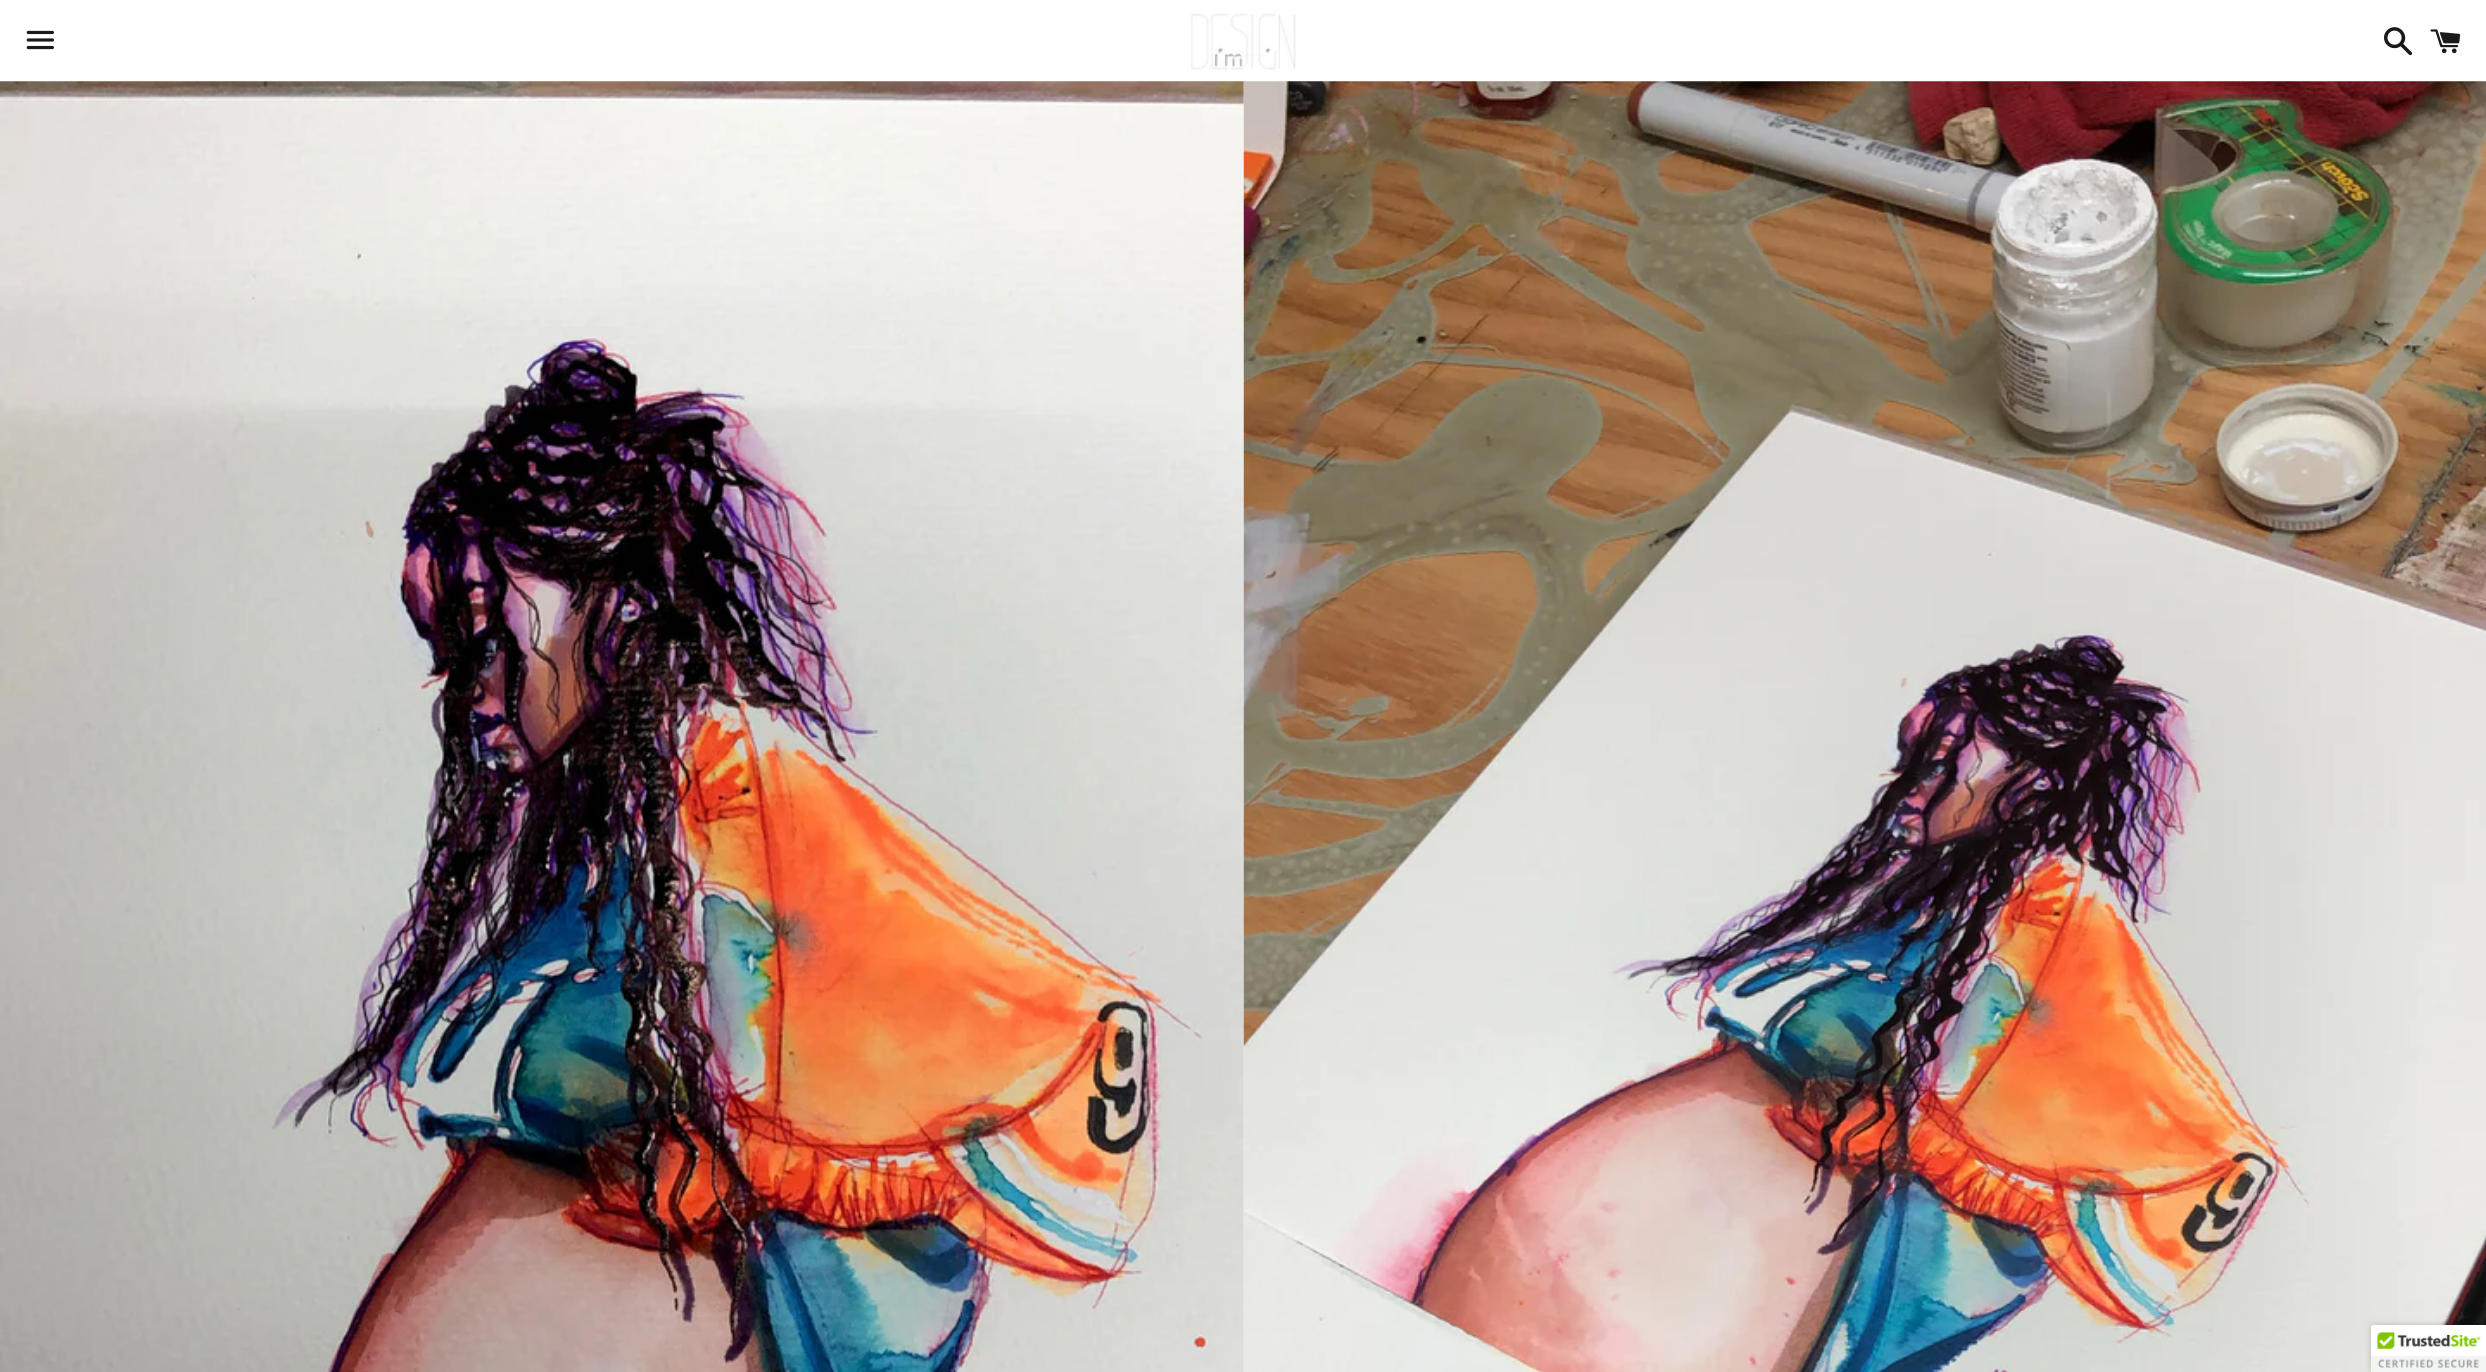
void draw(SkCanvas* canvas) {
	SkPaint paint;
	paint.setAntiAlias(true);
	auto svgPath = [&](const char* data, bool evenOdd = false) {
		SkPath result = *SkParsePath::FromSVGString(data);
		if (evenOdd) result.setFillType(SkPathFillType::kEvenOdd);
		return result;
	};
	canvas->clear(0xffffffff);
	canvas->drawImageRect(SkImages::DeferredFromEncodedData(SkData::MakeFromFileName("img1.png")), SkRect::MakeXYWH(26, 30, 28, 20), SkSamplingOptions());
	canvas->drawImageRect(SkImages::DeferredFromEncodedData(SkData::MakeFromFileName("img2.png")), SkRect::MakeXYWH(1191, 13, 105, 57), SkSamplingOptions());
	canvas->drawImageRect(SkImages::DeferredFromEncodedData(SkData::MakeFromFileName("img3.png")), SkRect::MakeXYWH(2384, 27, 29, 29), SkSamplingOptions());
	canvas->drawImageRect(SkImages::DeferredFromEncodedData(SkData::MakeFromFileName("img4.png")), SkRect::MakeXYWH(2430, 29, 31, 25), SkSamplingOptions());
	canvas->drawImageRect(SkImages::DeferredFromEncodedData(SkData::MakeFromFileName("img5.png")), SkRect::MakeXYWH(0, 81, 1244, 1291), SkSamplingOptions());
	canvas->drawImageRect(SkImages::DeferredFromEncodedData(SkData::MakeFromFileName("img6.png")), SkRect::MakeXYWH(1243, 81, 1243, 1291), SkSamplingOptions());
	paint.setColor(0x33000000);
	paint.setMaskFilter(SkMaskFilter::MakeBlur(kNormal_SkBlurStyle, 3));
	canvas->drawRoundRect(SkRect::MakeXYWH(2371, 1325, 115, 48), 2.5, 2.5, paint);
	paint.setMaskFilter(nullptr);
	paint.setColor(0xffffffff);
	canvas->drawPath(svgPath("M2373.5 1325H2486V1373H2371V1327.5C2371 1326 2372 1325 2373.5 1325Z"), paint);
	canvas->drawImageRect(SkImages::DeferredFromEncodedData(SkData::MakeFromFileName("img7.png")), SkRect::MakeXYWH(2371, 1325, 115, 47), SkSamplingOptions());
}
